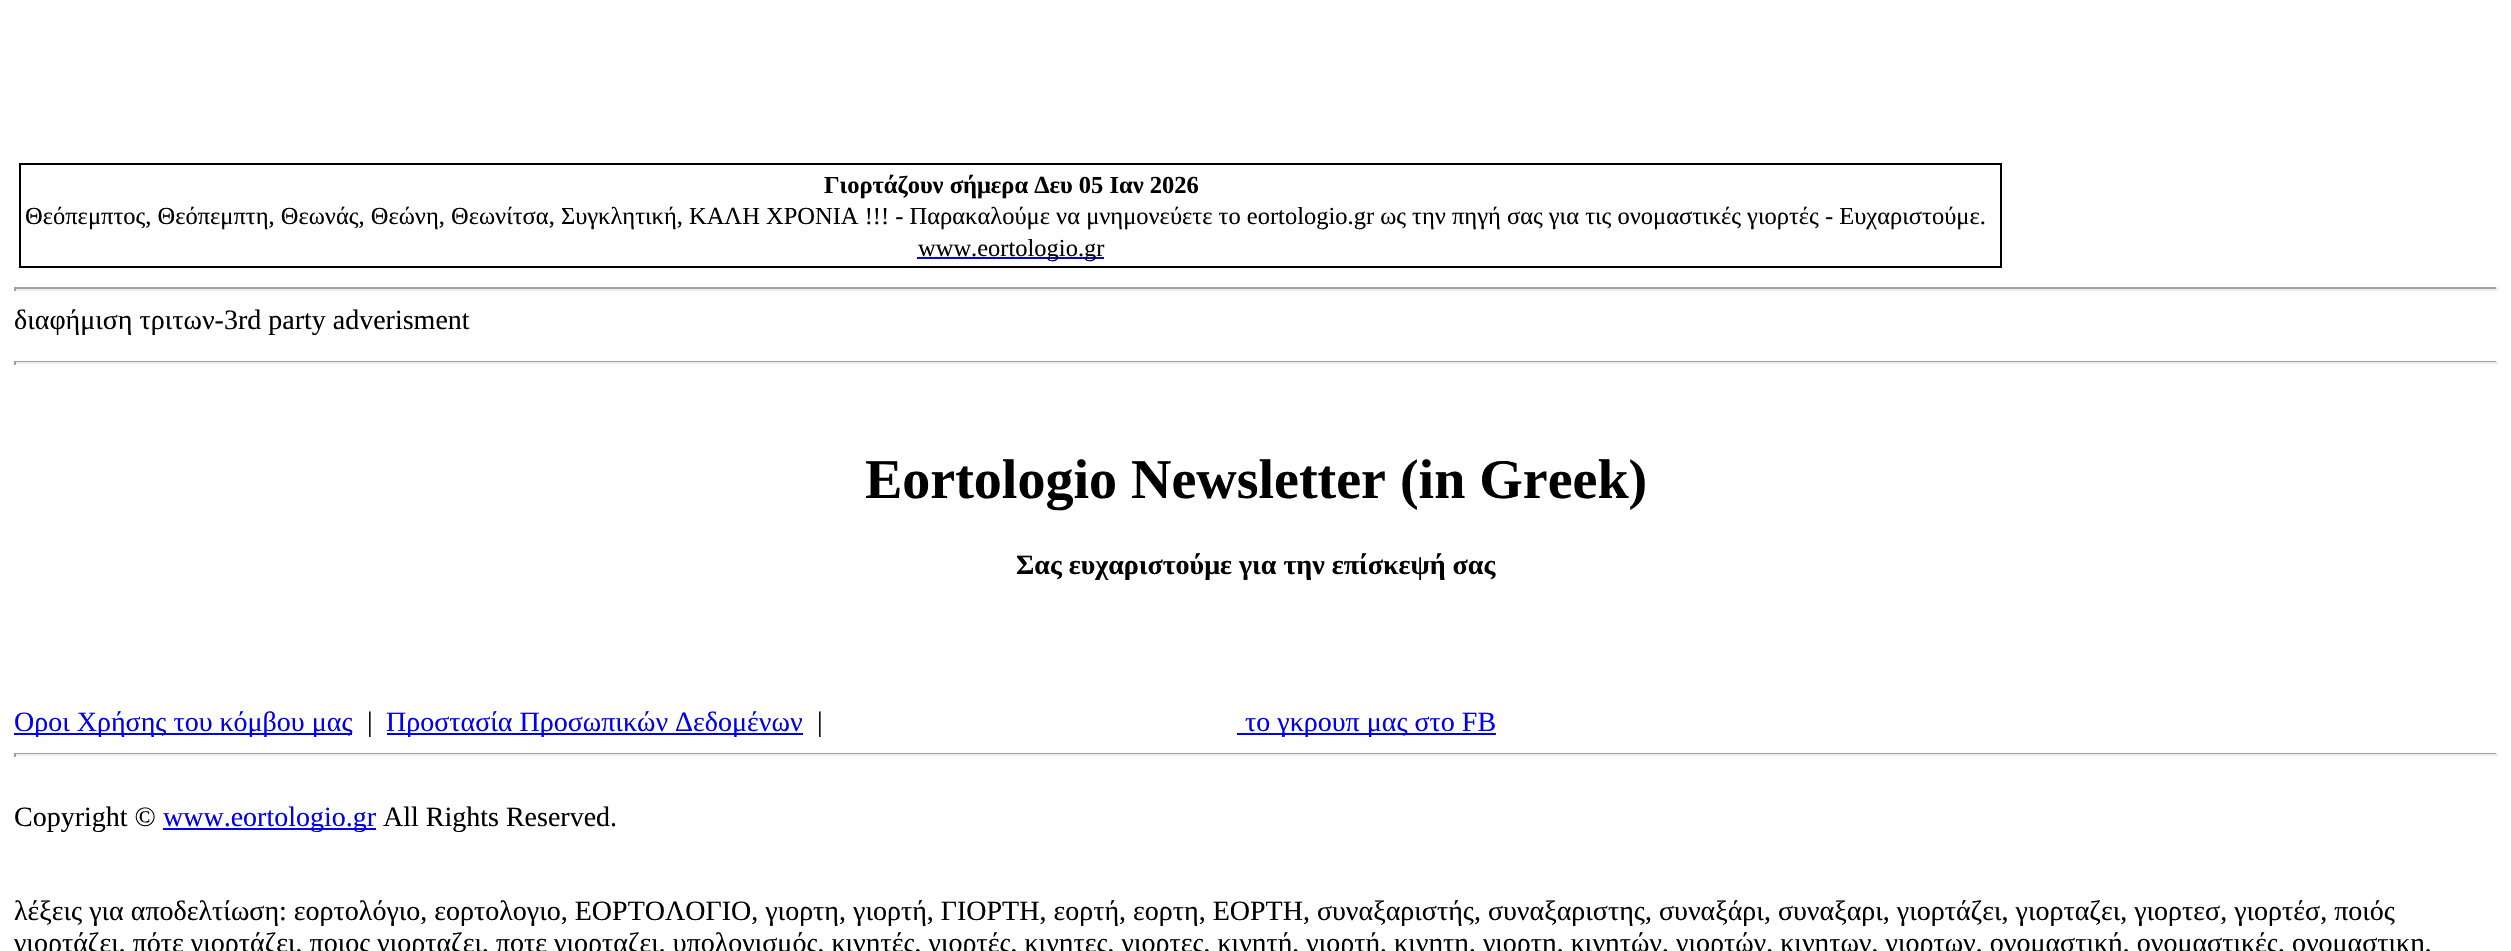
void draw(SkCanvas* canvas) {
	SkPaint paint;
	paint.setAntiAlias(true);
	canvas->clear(0xffffffff);
	paint.setStroke(true);
	paint.setStrokeWidth(2);
	paint.setColor(0xff000000);
	canvas->drawRect(SkRect::MakeXYWH(20, 164, 1981, 103), paint);
	SkFont f1(fontMgr->matchFamilyStyle("Liberation Serif", SkFontStyle::Bold()), 24.5);
	f1.setSubpixel(true);
	paint.setStroke(false);
	canvas->drawString("Γιορτάζουν σήμερα Δευ 05 Ιαν 2026", 824, 193, f1, paint);
	SkFont f2(fontMgr->matchFamilyStyle("Liberation Serif", SkFontStyle::Normal()), 24.5);
	f2.setSubpixel(true);
	canvas->drawString("Θεόπεμπτος, Θεόπεμπτη, Θεωνάς, Θεώνη, Θεωνίτσα, Συγκλητική, ΚΑΛΗ ΧΡΟΝΙΑ !!! - Παρακαλούμε να μνημονεύετε το eortologio.gr ως την πηγή σας για τις ονομαστικές γιορτές - Ευχαριστούμε.", 25, 224, f2, paint);
	paint.setColor(0xff0000ee);
	canvas->drawRect(SkRect::MakeXYWH(917, 257, 187, 2), paint);
	paint.setColor(0xff000000);
	canvas->drawString("www.eortologio.gr", 918, 256, f2, paint);
	paint.setColor(0xff9f9f9f);
	canvas->drawRect(SkRect::MakeXYWH(14, 287, 2483, 2), paint);
	paint.setColor(0xffeeeeee);
	canvas->drawRect(SkRect::MakeXYWH(2496, 287, 2, 4), paint);
	canvas->drawRect(SkRect::MakeXYWH(14, 289, 2483, 2), paint);
	paint.setColor(0xff9f9f9f);
	canvas->drawRect(SkRect::MakeXYWH(14, 287, 2, 4), paint);
	SkFont f3(fontMgr->matchFamilyStyle("Liberation Serif", SkFontStyle::Normal()), 28);
	f3.setSubpixel(true);
	paint.setColor(0xff000000);
	canvas->drawString("διαφήμιση τριτων-3rd party adverisment", 14, 329, f3, paint);
	paint.setColor(0xff9f9f9f);
	canvas->drawRect(SkRect::MakeXYWH(14, 361, 2483, 1), paint);
	paint.setColor(0xffeeeeee);
	canvas->drawRect(SkRect::MakeXYWH(2496, 361, 2, 4), paint);
	canvas->drawRect(SkRect::MakeXYWH(14, 362, 2483, 2), paint);
	paint.setColor(0xff9f9f9f);
	canvas->drawRect(SkRect::MakeXYWH(14, 361, 2, 4), paint);
	SkFont f4(fontMgr->matchFamilyStyle("Liberation Serif", SkFontStyle::Bold()), 56);
	f4.setSubpixel(true);
	paint.setColor(0xff000000);
	canvas->drawString("Eortologio Newsletter (in Greek)", 865, 498, f4, paint);
	SkFont f5(fontMgr->matchFamilyStyle("Liberation Serif", SkFontStyle::Bold()), 28);
	f5.setSubpixel(true);
	canvas->drawString("Σας ευχαριστούμε για την επίσκεψή σας", 1016, 574, f5, paint);
	paint.setColor(0xff0000ee);
	canvas->drawRect(SkRect::MakeXYWH(14, 733, 338, 2), paint);
	canvas->drawString("Οροι Χρήσης του κόμβου μας", 14, 731, f3, paint);
	paint.setColor(0xff000000);
	canvas->drawString("|", 367, 731, f3, paint);
	paint.setColor(0xff0000ee);
	canvas->drawRect(SkRect::MakeXYWH(387, 733, 416, 2), paint);
	canvas->drawString("Προστασία Προσωπικών Δεδομένων", 386, 731, f3, paint);
	paint.setColor(0xff000000);
	canvas->drawString("|", 817, 731, f3, paint);
	paint.setColor(0xff0000ee);
	canvas->drawRect(SkRect::MakeXYWH(1237, 733, 259, 2), paint);
	canvas->drawString("το γκρουπ μας στο FB", 1245, 731, f3, paint);
	paint.setColor(0xff9f9f9f);
	canvas->drawRect(SkRect::MakeXYWH(14, 753, 2483, 1), paint);
	paint.setColor(0xffeeeeee);
	canvas->drawRect(SkRect::MakeXYWH(2496, 753, 2, 4), paint);
	canvas->drawRect(SkRect::MakeXYWH(14, 754, 2483, 2), paint);
	paint.setColor(0xff9f9f9f);
	canvas->drawRect(SkRect::MakeXYWH(14, 753, 2, 4), paint);
	paint.setColor(0xff000000);
	canvas->drawString("Copyright ©", 14, 826, f3, paint);
	paint.setColor(0xff0000ee);
	canvas->drawRect(SkRect::MakeXYWH(163, 828, 213, 2), paint);
	canvas->drawString("www.eortologio.gr", 163, 826, f3, paint);
	paint.setColor(0xff000000);
	canvas->drawString("All Rights Reserved.", 383, 826, f3, paint);
	canvas->drawString("λέξεις για αποδελτίωση: εορτολόγιο, εορτολογιο, ΕΟΡΤΟΛΟΓΙΟ, γιορτη, γιορτή, ΓΙΟΡΤΗ, εορτή, εορτη, ΕΟΡΤΗ, συναξαριστής, συναξαριστης, συναξάρι, συναξαρι, γιορτάζει, γιορταζει, γιορτεσ, γιορτέσ, ποιός", 14, 920, f3, paint);
	canvas->drawString("γιορτάζει, πότε γιορτάζει, ποιος γιορταζει, ποτε γιορταζει, υπολογισμός, κινητές, γιορτές, κινητες, γιορτες, κινητή, γιορτή, κινητη, γιορτη, κινητών, γιορτών, κινητων, γιορτων, ονομαστική, ονομαστικές, ονομαστικη,", 14, 952, f3, paint);
}
